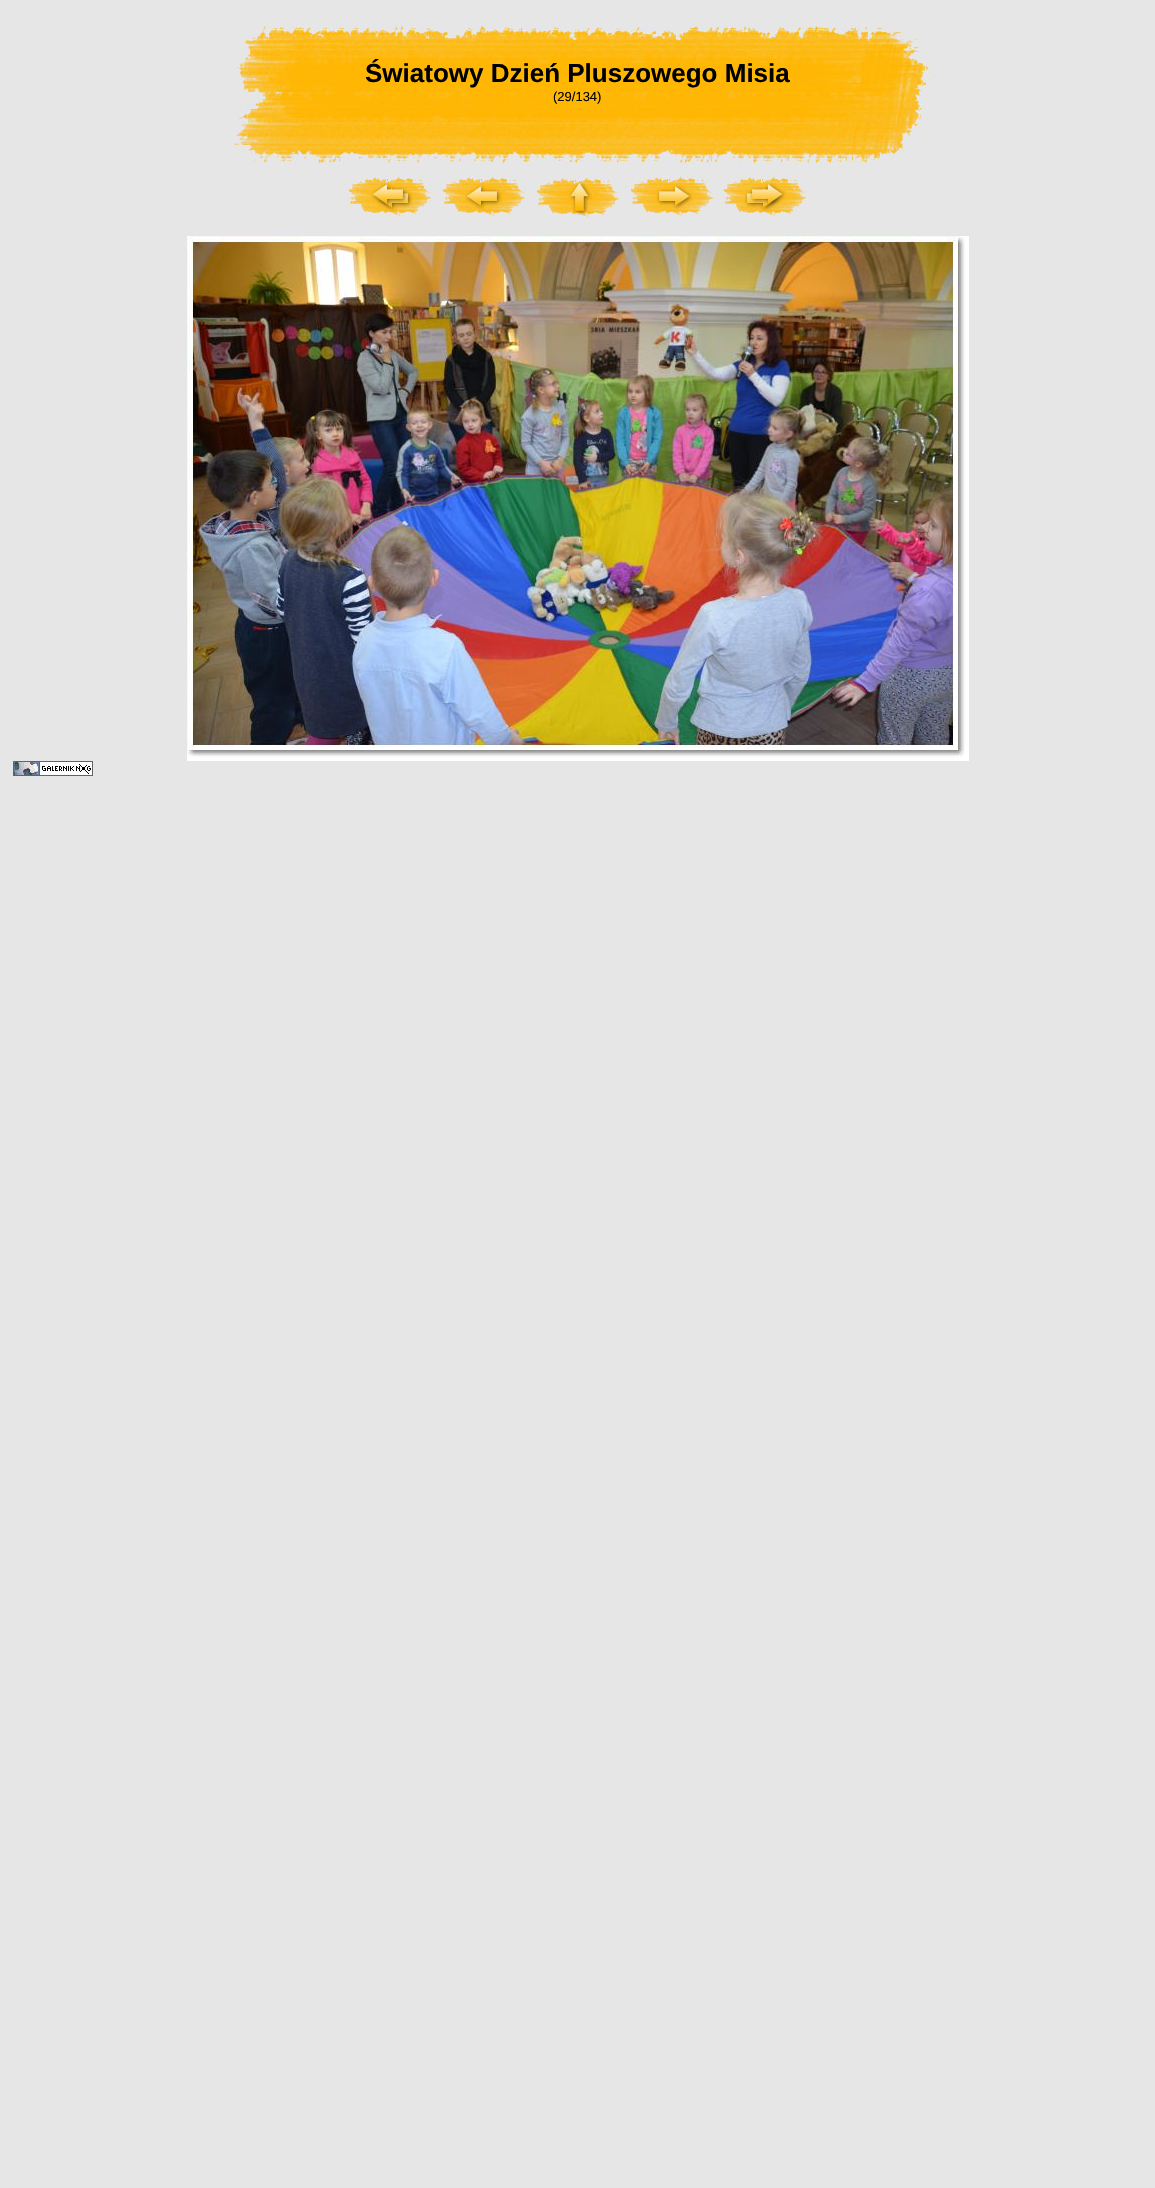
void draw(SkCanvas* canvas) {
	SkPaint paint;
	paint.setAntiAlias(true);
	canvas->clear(0xffe6e6e6);
	canvas->drawImageRect(SkImages::DeferredFromEncodedData(SkData::MakeFromFileName("img1.png")), SkRect::MakeXYWH(234, 21, 696, 144), SkSamplingOptions());
	SkFont f1(fontMgr->matchFamilyStyle("Liberation Sans", SkFontStyle::Bold()), 26);
	f1.setSubpixel(true);
	paint.setColor(0xff000000);
	canvas->drawString("Światowy Dzień Pluszowego Misia", 365, 82, f1, paint);
	SkFont f2(fontMgr->matchFamilyStyle("Liberation Sans", SkFontStyle::Normal()), 13);
	f2.setSubpixel(true);
	canvas->drawString("(29/134)", 553, 101, f2, paint);
	canvas->drawImageRect(SkImages::DeferredFromEncodedData(SkData::MakeFromFileName("img2.png")), SkRect::MakeXYWH(345, 175, 88, 43), SkSamplingOptions());
	canvas->drawImageRect(SkImages::DeferredFromEncodedData(SkData::MakeFromFileName("img3.png")), SkRect::MakeXYWH(439, 175, 88, 43), SkSamplingOptions());
	canvas->drawImageRect(SkImages::DeferredFromEncodedData(SkData::MakeFromFileName("img4.png")), SkRect::MakeXYWH(533, 175, 88, 43), SkSamplingOptions());
	canvas->drawImageRect(SkImages::DeferredFromEncodedData(SkData::MakeFromFileName("img5.png")), SkRect::MakeXYWH(626, 175, 88, 43), SkSamplingOptions());
	canvas->drawImageRect(SkImages::DeferredFromEncodedData(SkData::MakeFromFileName("img6.png")), SkRect::MakeXYWH(720, 175, 88, 43), SkSamplingOptions());
	canvas->drawImageRect(SkImages::DeferredFromEncodedData(SkData::MakeFromFileName("img7.png")), SkRect::MakeXYWH(187, 236, 782, 525), SkSamplingOptions());
	canvas->drawImageRect(SkImages::DeferredFromEncodedData(SkData::MakeFromFileName("img8.png")), SkRect::MakeXYWH(13, 761, 80, 15), SkSamplingOptions());
}
